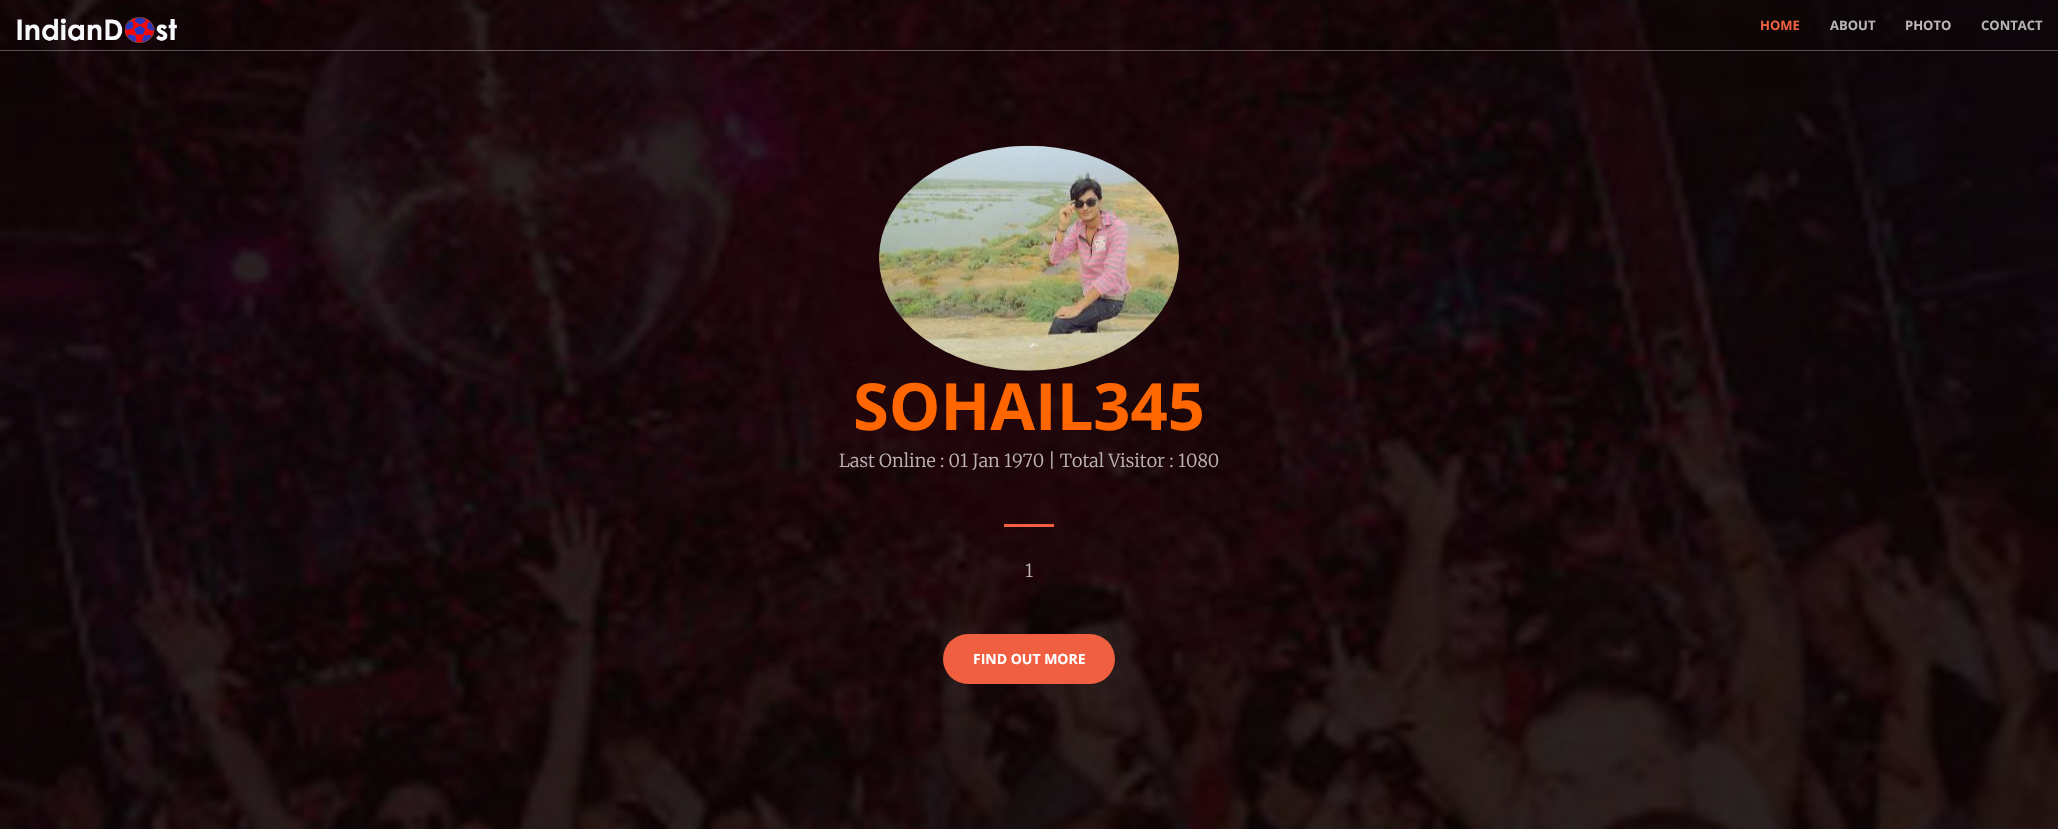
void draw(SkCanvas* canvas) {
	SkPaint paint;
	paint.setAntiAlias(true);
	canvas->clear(0xffffffff);
	canvas->drawImageRect(SkImages::DeferredFromEncodedData(SkData::MakeFromFileName("img2.png")), SkRect::MakeXYWH(0, 0, 2058, 829), SkSamplingOptions());
	paint.setColor(0x4dffffff);
	canvas->drawRect(SkRect::MakeXYWH(0, 50, 2058, 1), paint);
	canvas->drawImageRect(SkImages::DeferredFromEncodedData(SkData::MakeFromFileName("img1.png")), SkRect::MakeXYWH(17, 17, 160, 26), SkSamplingOptions());
	SkFont f1(fontMgr->matchFamilyStyle("Open Sans", SkFontStyle::Bold()), 13);
	f1.setSubpixel(true);
	paint.setColor(0xfff05f40);
	canvas->drawString("HOME", 1760, 30, f1, paint);
	paint.setColor(0xffb6b4b5);
	canvas->drawString("ABOUT", 1830, 30, f1, paint);
	paint.setColor(0xffbcb4b6);
	canvas->drawString("PHOTO", 1905, 30, f1, paint);
	paint.setColor(0xffb6b4b5);
	canvas->drawString("CONTACT", 1981, 30, f1, paint);
	canvas->drawImageRect(SkImages::DeferredFromEncodedData(SkData::MakeFromFileName("img3.png")), SkRect::MakeXYWH(879, 145, 300, 226), SkSamplingOptions());
	SkFont f2(fontMgr->matchFamilyStyle("Open Sans", SkFontStyle::Bold()), 65);
	f2.setSubpixel(true);
	paint.setColor(0xffff6600);
	canvas->drawString("SOHAIL345", 853, 430, f2, paint);
	SkFont f3(fontMgr->matchFamilyStyle("Merriweather", SkFontStyle(300, SkFontStyle::kNormal_Width, SkFontStyle::kUpright_Slant)), 18);
	f3.setSubpixel(true);
	paint.setColor(0xffbcb4b6);
	canvas->drawString("Last Online : 01 Jan 1970", 839, 467, f3, paint);
	canvas->drawString("| Total Visitor :", 1048, 467, f3, paint);
	canvas->drawString("1080", 1178, 467, f3, paint);
	paint.setColor(0xfff05f40);
	canvas->drawRect(SkRect::MakeXYWH(1004, 524, 50, 3), paint);
	paint.setColor(0xffbcb4b6);
	canvas->drawString("1", 1025, 577, f3, paint);
	paint.setColor(0xfff05f40);
	canvas->drawRoundRect(SkRect::MakeXYWH(943, 634, 172, 50), 25, 25, paint);
	SkFont f4(fontMgr->matchFamilyStyle("Open Sans", SkFontStyle::Bold()), 14);
	f4.setSubpixel(true);
	paint.setColor(0xffffffff);
	canvas->drawString("FIND OUT MORE", 973, 664, f4, paint);
}
